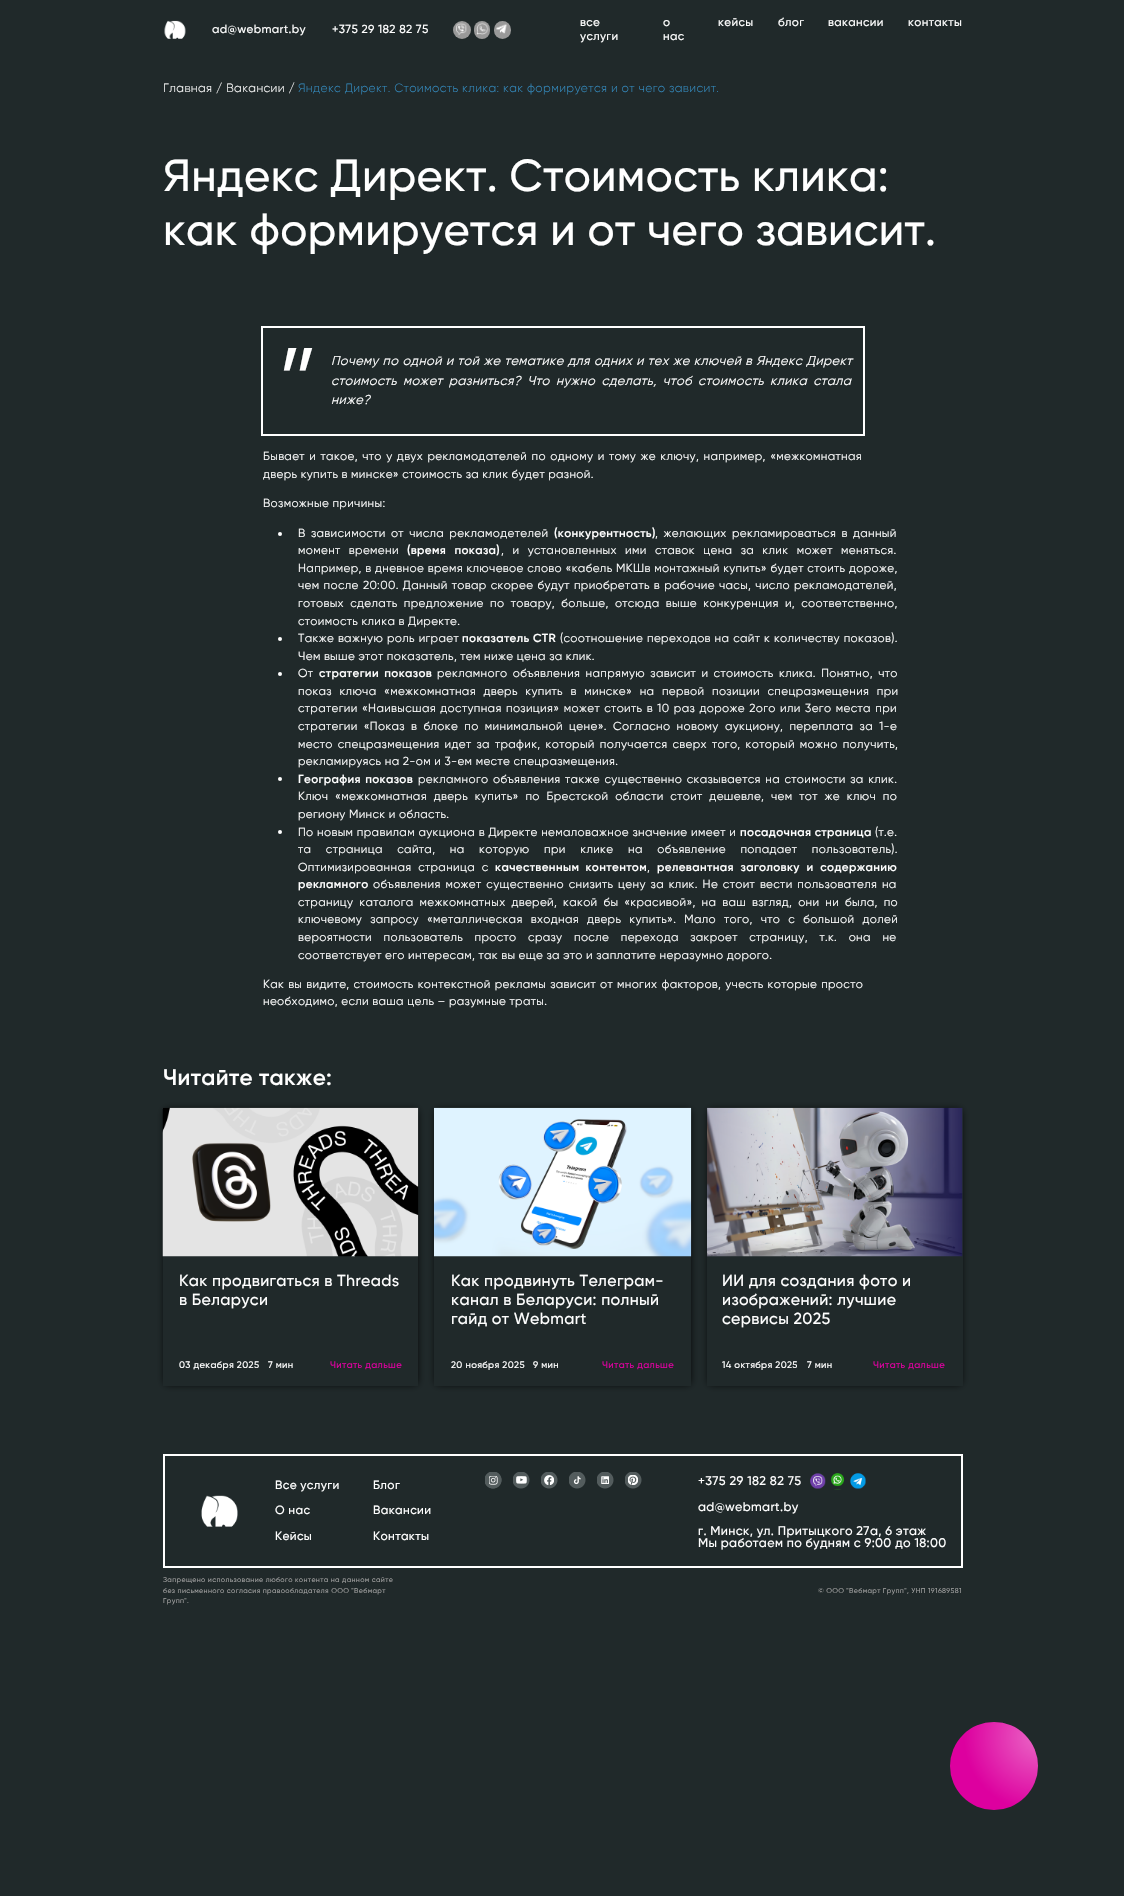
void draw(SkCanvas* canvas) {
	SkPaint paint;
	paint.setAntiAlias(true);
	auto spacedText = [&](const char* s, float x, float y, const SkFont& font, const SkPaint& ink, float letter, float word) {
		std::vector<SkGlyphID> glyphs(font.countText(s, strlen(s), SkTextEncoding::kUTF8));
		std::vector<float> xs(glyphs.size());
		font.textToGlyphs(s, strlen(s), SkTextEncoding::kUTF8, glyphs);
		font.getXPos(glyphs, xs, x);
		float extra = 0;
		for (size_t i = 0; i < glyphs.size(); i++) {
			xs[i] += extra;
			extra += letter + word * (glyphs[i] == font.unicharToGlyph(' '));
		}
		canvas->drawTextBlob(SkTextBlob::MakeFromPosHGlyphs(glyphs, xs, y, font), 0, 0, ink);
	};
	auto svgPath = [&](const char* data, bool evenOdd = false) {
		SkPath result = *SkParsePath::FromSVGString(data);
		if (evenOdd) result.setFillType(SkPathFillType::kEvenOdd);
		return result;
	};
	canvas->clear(0xff20292a);
	canvas->drawImageRect(SkImages::DeferredFromEncodedData(SkData::MakeFromFileName("img1.png")), SkRect::MakeXYWH(164, 20, 22, 19), SkSamplingOptions());
	SkFont f1(fontMgr->matchFamilyStyle("Gilroy", SkFontStyle(500, SkFontStyle::kNormal_Width, SkFontStyle::kUpright_Slant)), 11.73);
	f1.setSubpixel(true);
	paint.setColor(0xffffffff);
	spacedText("ad@webmart.by", 212, 33, f1, paint, 0.35, 0);
	spacedText("+375 29 182 82 75", 332, 33, f1, paint, 0.35, 0);
	paint.setColor(0xff999999);
	canvas->drawCircle(462, 30, 9, paint);
	canvas->drawImageRect(SkImages::DeferredFromEncodedData(SkData::MakeFromFileName("img2.png")), SkRect::MakeXYWH(456, 22, 11, 13), SkSamplingOptions());
	canvas->drawRoundRect(SkRect::MakeXYWH(474, 21, 16, 18), 8, 8, paint);
	canvas->drawImageRect(SkImages::DeferredFromEncodedData(SkData::MakeFromFileName("img3.png")), SkRect::MakeXYWH(476, 22, 13, 13), SkSamplingOptions());
	canvas->drawRoundRect(SkRect::MakeXYWH(494, 21, 17, 18), 8.5, 8.5, paint);
	canvas->drawImageRect(SkImages::DeferredFromEncodedData(SkData::MakeFromFileName("img4.png")), SkRect::MakeXYWH(496, 24, 11, 10), SkSamplingOptions());
	paint.setColor(0xffffffff);
	spacedText("все", 580, 26, f1, paint, 0.35, 0);
	spacedText("услуги", 580, 40, f1, paint, 0.35, 0);
	spacedText("о", 663, 26, f1, paint, 0.35, 0);
	spacedText("нас", 663, 40, f1, paint, 0.35, 0);
	spacedText("кейсы", 718, 26, f1, paint, 0.35, 0);
	spacedText("блог", 778, 26, f1, paint, 0.35, 0);
	spacedText("вакансии", 828, 26, f1, paint, 0.35, 0);
	spacedText("контакты", 908, 26, f1, paint, 0.35, 0);
	SkFont f2(fontMgr->matchFamilyStyle("Gilroy", SkFontStyle(300, SkFontStyle::kNormal_Width, SkFontStyle::kUpright_Slant)), 12);
	f2.setSubpixel(true);
	spacedText("Главная / Вакансии /", 163, 92, f2, paint, 0.35, 0);
	paint.setColor(0xff3388bb);
	spacedText("Яндекс Директ. Стоимость клика: как формируется и от чего зависит.", 298, 92, f2, paint, 0.35, 0);
	SkFont f3(fontMgr->matchFamilyStyle("Gilroy", SkFontStyle(500, SkFontStyle::kNormal_Width, SkFontStyle::kUpright_Slant)), 45);
	f3.setSubpixel(true);
	paint.setColor(0xffffffff);
	spacedText("Яндекс Директ. Стоимость клика:", 163, 191, f3, paint, 0.35, 0);
	spacedText("как формируется и от чего зависит.", 163, 245, f3, paint, 0.35, 0);
	paint.setStroke(true);
	paint.setStrokeWidth(2);
	canvas->drawRect(SkRect::MakeXYWH(262, 327, 602, 108), paint);
	SkFont f4(fontMgr->matchFamilyStyle("Gilroy", SkFontStyle::Italic()), 113);
	f4.setSubpixel(true);
	paint.setStroke(false);
	spacedText("\"", 263, 427, f4, paint, 0.35, 0);
	SkFont f5(fontMgr->matchFamilyStyle("Gilroy", SkFontStyle::Italic()), 12.9);
	f5.setSubpixel(true);
	spacedText("Почему по одной и той же тематике для одних и тех же ключей в Яндекс Директ", 331, 365, f5, paint, 0.35, 0.5);
	spacedText("стоимость может разниться? Что нужно сделать, чтоб стоимость клика стала", 331, 385, f5, paint, 0.35, 2.6);
	spacedText("ниже?", 331, 404, f5, paint, 0.35, 0);
	SkFont f6(fontMgr->matchFamilyStyle("Gilroy", SkFontStyle::Normal()), 11.73);
	f6.setSubpixel(true);
	spacedText("Бывает и такое, что у двух рекламодателей по одному и тому же ключу, например, «межкомнатная", 263, 460, f6, paint, 0.35, 1.1);
	spacedText("дверь купить в минске» стоимость за клик будет разной.", 263, 478, f6, paint, 0.35, 0);
	spacedText("Возможные причины:", 263, 507, f6, paint, 0.35, 0);
	canvas->drawCircle(280, 534, 2, paint);
	spacedText("В зависимости от числа рекламодетелей", 298, 537, f6, paint, 0.35, 2);
	SkFont f7(fontMgr->matchFamilyStyle("Gilroy", SkFontStyle(600, SkFontStyle::kNormal_Width, SkFontStyle::kUpright_Slant)), 11.73);
	f7.setSubpixel(true);
	spacedText("(конкурентность)", 554, 537, f7, paint, 0.35, 0);
	spacedText(", желающих рекламироваться в данный", 655, 537, f6, paint, 0.35, 2);
	spacedText("момент времени", 298, 554, f6, paint, 0.35, 5);
	spacedText("(время показа)", 407, 554, f7, paint, 0.35, 5);
	spacedText(", и установленных ими ставок цена за клик может меняться.", 501, 554, f6, paint, 0.35, 5);
	spacedText("Например, в дневное время ключевое слово «кабель МКШв монтажный купить» будет стоить дороже,", 298, 572, f6, paint, 0.35, 0.25);
	spacedText("чем после 20:00. Данный товар скорее будут приобретать в рабочие часы, число рекламодателей,", 298, 589, f6, paint, 0.35, 0.8);
	spacedText("готовых сделать предложение по товару, больше, отсюда выше конкуренция и, соответственно,", 298, 607, f6, paint, 0.35, 3);
	spacedText("стоимость клика в Директе.", 298, 625, f6, paint, 0.35, 0);
	canvas->drawCircle(280, 639, 2, paint);
	spacedText("Также важную роль играет", 298, 642, f6, paint, 0.35, 0.5);
	spacedText("показатель CTR", 462, 642, f7, paint, 0.35, 0);
	spacedText("(соотношение переходов на сайт к количеству показов).", 560, 642, f6, paint, 0.35, 0.5);
	spacedText("Чем выше этот показатель, тем ниже цена за клик.", 298, 660, f6, paint, 0.35, 0);
	canvas->drawCircle(280, 674, 2, paint);
	spacedText("От", 298, 677, f6, paint, 0.35, 0);
	spacedText("стратегии показов", 319, 677, f7, paint, 0.35, 2);
	spacedText("рекламного объявления напрямую зависит и стоимость клика. Понятно, что", 437, 677, f6, paint, 0.35, 2);
	spacedText("показ ключа «межкомнатная дверь купить в минске» на первой позиции спецразмещения при", 298, 695, f6, paint, 0.35, 4.25);
	spacedText("стратегии «Наивысшая доступная позиция» может стоить в 10 раз дороже 2ого или 3его места при", 298, 712, f6, paint, 0.35, 1.1);
	spacedText("стратегии «Показ в блоке по минимальной цене». Согласно новому аукциону, переплата за 1-е", 298, 730, f6, paint, 0.35, 2.9);
	spacedText("место спецразмещения идет за трафик, который получается сверх того, который можно получить,", 298, 748, f6, paint, 0.35, 1.75);
	spacedText("рекламируясь на 2-ом и 3-ем месте спецразмещения.", 298, 765, f6, paint, 0.35, 0);
	canvas->drawCircle(280, 779, 2, paint);
	spacedText("География показов", 298, 783, f7, paint, 0.35, 1);
	spacedText("рекламного объявления также существенно сказывается на стоимости за клик.", 418, 783, f6, paint, 0.35, 1.25);
	spacedText("Ключ «межкомнатная дверь купить» по Брестской области стоит дешевле, чем тот же ключ по", 298, 800, f6, paint, 0.35, 3.5);
	spacedText("региону Минск и область.", 298, 818, f6, paint, 0.35, 0);
	canvas->drawCircle(280, 832, 2, paint);
	spacedText("По новым правилам аукциона в Директе немаловажное значение имеет и", 298, 836, f6, paint, 0.35, 0.25);
	spacedText("посадочная страница", 740, 836, f7, paint, 0.35, 0);
	spacedText("(т.е.", 875, 836, f6, paint, 0.35, 0);
	spacedText("та страница сайта, на которую при клике на объявление попадает пользователь).", 298, 853, f6, paint, 0.35, 11.25);
	spacedText("Оптимизированная страница с", 298, 871, f6, paint, 0.35, 3.5);
	spacedText("качественным контентом", 495, 871, f7, paint, 0.35, 3);
	spacedText(",", 647, 871, f6, paint, 0.35, 0);
	spacedText("релевантная заголовку и содержанию", 657, 871, f7, paint, 0.35, 3.5);
	spacedText("рекламного", 298, 888, f7, paint, 0.35, 0);
	spacedText("объявления может существенно снизить цену за клик. Не стоит вести пользователя на", 373, 888, f6, paint, 0.35, 1.5);
	spacedText("страницу каталога межкомнатных дверей, какой бы «красивой», на ваш взгляд, они ни была, по", 298, 906, f6, paint, 0.35, 2.6);
	spacedText("ключевому запросу «металлическая входная дверь купить». Мало того, что с большой долей", 298, 923, f6, paint, 0.35, 4.75);
	spacedText("вероятности пользователь просто сразу после перехода закроет страницу, т.к. она не", 298, 941, f6, paint, 0.35, 8.25);
	spacedText("соответствует его интересам, так вы еще за это и заплатите неразумно дорого.", 298, 959, f6, paint, 0.35, 0);
	spacedText("Как вы видите, стоимость контекстной рекламы зависит от многих факторов, учесть которые просто", 263, 988, f6, paint, 0.35, 0.75);
	spacedText("необходимо, если ваша цель – разумные траты.", 263, 1005, f6, paint, 0.35, 0);
	SkFont f8(fontMgr->matchFamilyStyle("Gilroy", SkFontStyle(600, SkFontStyle::kNormal_Width, SkFontStyle::kUpright_Slant)), 22.5);
	f8.setSubpixel(true);
	spacedText("Читайте также:", 163, 1085, f8, paint, 0.35, 0);
	canvas->save();
	canvas->clipPath(svgPath("M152 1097H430V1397H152ZM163 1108H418V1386H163Z", true), true);
	paint.setColor(0xff000000);
	paint.setMaskFilter(SkMaskFilter::MakeBlur(kNormal_SkBlurStyle, 4));
	canvas->drawRect(SkRect::MakeXYWH(165, 1110, 252, 274), paint);
	paint.setMaskFilter(nullptr);
	canvas->restore();
	canvas->drawImageRect(SkImages::DeferredFromEncodedData(SkData::MakeFromFileName("img5.png")), SkRect::MakeXYWH(162, 1107, 257, 150), SkSamplingOptions());
	SkFont f9(fontMgr->matchFamilyStyle("Gilroy", SkFontStyle(500, SkFontStyle::kNormal_Width, SkFontStyle::kUpright_Slant)), 16);
	f9.setSubpixel(true);
	paint.setColor(0xffffffff);
	spacedText("Как продвигаться в Threads", 179, 1286, f9, paint, 0.35, 0);
	spacedText("в Беларуси", 179, 1305, f9, paint, 0.35, 0);
	SkFont f10(fontMgr->matchFamilyStyle("Gilroy", SkFontStyle(500, SkFontStyle::kNormal_Width, SkFontStyle::kUpright_Slant)), 9.5);
	f10.setSubpixel(true);
	spacedText("03 декабря 2025", 179, 1368, f10, paint, 0.35, 0);
	spacedText("7 мин", 268, 1368, f10, paint, 0.35, 0);
	paint.setColor(0xffdd009f);
	spacedText("Читать дальше", 330, 1368, f10, paint, 0.35, 0);
	canvas->save();
	canvas->clipPath(svgPath("M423 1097H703V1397H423ZM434 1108H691V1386H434Z", true), true);
	paint.setColor(0xff000000);
	paint.setMaskFilter(SkMaskFilter::MakeBlur(kNormal_SkBlurStyle, 4));
	canvas->drawRect(SkRect::MakeXYWH(436, 1110, 254, 274), paint);
	paint.setMaskFilter(nullptr);
	canvas->restore();
	canvas->drawImageRect(SkImages::DeferredFromEncodedData(SkData::MakeFromFileName("img6.png")), SkRect::MakeXYWH(434, 1107, 258, 150), SkSamplingOptions());
	paint.setColor(0xffffffff);
	spacedText("Как продвинуть Телеграм-", 451, 1286, f9, paint, 0.35, 0);
	spacedText("канал в Беларуси: полный", 451, 1305, f9, paint, 0.35, 0);
	spacedText("гайд от Webmart", 451, 1324, f9, paint, 0.35, 0);
	spacedText("20 ноября 2025", 451, 1368, f10, paint, 0.35, 0);
	spacedText("9 мин", 533, 1368, f10, paint, 0.35, 0);
	paint.setColor(0xffdd009f);
	spacedText("Читать дальше", 602, 1368, f10, paint, 0.35, 0);
	paint.setColor(0xff000000);
	paint.setMaskFilter(SkMaskFilter::MakeBlur(kNormal_SkBlurStyle, 4));
	canvas->drawRect(SkRect::MakeXYWH(709, 1110, 252, 274), paint);
	paint.setMaskFilter(nullptr);
	paint.setColor(0xff20292a);
	canvas->drawRect(SkRect::MakeXYWH(707, 1108, 256, 278), paint);
	canvas->drawImageRect(SkImages::DeferredFromEncodedData(SkData::MakeFromFileName("img7.png")), SkRect::MakeXYWH(707, 1107, 256, 150), SkSamplingOptions());
	paint.setColor(0xffffffff);
	spacedText("ИИ для создания фото и", 722, 1286, f9, paint, 0.35, 0);
	spacedText("изображений: лучшие", 722, 1305, f9, paint, 0.35, 0);
	spacedText("сервисы 2025", 722, 1324, f9, paint, 0.35, 0);
	spacedText("14 октября 2025", 722, 1368, f10, paint, 0.35, 0);
	spacedText("7 мин", 807, 1368, f10, paint, 0.35, 0);
	paint.setColor(0xffdd009f);
	spacedText("Читать дальше", 873, 1368, f10, paint, 0.35, 0);
	paint.setStroke(true);
	paint.setColor(0xffffffff);
	canvas->drawRect(SkRect::MakeXYWH(164, 1455, 798, 112), paint);
	canvas->drawImageRect(SkImages::DeferredFromEncodedData(SkData::MakeFromFileName("img8.png")), SkRect::MakeXYWH(201, 1495, 37, 32), SkSamplingOptions());
	SkFont f11(fontMgr->matchFamilyStyle("Gilroy", SkFontStyle(500, SkFontStyle::kNormal_Width, SkFontStyle::kUpright_Slant)), 12);
	f11.setSubpixel(true);
	paint.setStroke(false);
	spacedText("Все услуги", 275, 1489, f11, paint, 0.35, 0);
	spacedText("Блог", 373, 1489, f11, paint, 0.35, 0);
	spacedText("О нас", 275, 1514, f11, paint, 0.35, 0);
	spacedText("Вакансии", 373, 1514, f11, paint, 0.35, 0);
	spacedText("Кейсы", 275, 1540, f11, paint, 0.35, 0);
	spacedText("Контакты", 373, 1540, f11, paint, 0.35, 0);
	canvas->drawImageRect(SkImages::DeferredFromEncodedData(SkData::MakeFromFileName("img9.png")), SkRect::MakeXYWH(485, 1472, 17, 17), SkSamplingOptions());
	canvas->drawImageRect(SkImages::DeferredFromEncodedData(SkData::MakeFromFileName("img10.png")), SkRect::MakeXYWH(513, 1472, 17, 17), SkSamplingOptions());
	canvas->drawImageRect(SkImages::DeferredFromEncodedData(SkData::MakeFromFileName("img11.png")), SkRect::MakeXYWH(541, 1472, 17, 17), SkSamplingOptions());
	canvas->drawImageRect(SkImages::DeferredFromEncodedData(SkData::MakeFromFileName("img12.png")), SkRect::MakeXYWH(569, 1472, 17, 17), SkSamplingOptions());
	canvas->drawImageRect(SkImages::DeferredFromEncodedData(SkData::MakeFromFileName("img13.png")), SkRect::MakeXYWH(597, 1472, 17, 17), SkSamplingOptions());
	canvas->drawImageRect(SkImages::DeferredFromEncodedData(SkData::MakeFromFileName("img14.png")), SkRect::MakeXYWH(625, 1472, 17, 17), SkSamplingOptions());
	SkFont f12(fontMgr->matchFamilyStyle("Gilroy", SkFontStyle(500, SkFontStyle::kNormal_Width, SkFontStyle::kUpright_Slant)), 12.6);
	f12.setSubpixel(true);
	spacedText("+375 29 182 82 75", 698, 1485, f12, paint, 0.35, 0);
	canvas->drawImageRect(SkImages::DeferredFromEncodedData(SkData::MakeFromFileName("img15.png")), SkRect::MakeXYWH(810, 1473, 16, 16), SkSamplingOptions());
	canvas->drawImageRect(SkImages::DeferredFromEncodedData(SkData::MakeFromFileName("img16.png")), SkRect::MakeXYWH(831, 1473, 14, 17), SkSamplingOptions());
	canvas->drawImageRect(SkImages::DeferredFromEncodedData(SkData::MakeFromFileName("img17.png")), SkRect::MakeXYWH(850, 1473, 16, 16), SkSamplingOptions());
	spacedText("ad@webmart.by", 698, 1511, f12, paint, 0.35, 0);
	spacedText("г. Минск, ул. Притыцкого 27а, 6 этаж", 698, 1535, f12, paint, 0.35, 0);
	spacedText("Мы работаем по будням с 9:00 до 18:00", 698, 1547, f12, paint, 0.35, 0);
	SkFont f13(fontMgr->matchFamilyStyle("Gilroy", SkFontStyle(500, SkFontStyle::kNormal_Width, SkFontStyle::kUpright_Slant)), 7.1);
	f13.setSubpixel(true);
	paint.setColor(0xff9d9d9d);
	spacedText("Запрещено использование любого контента на данном сайте", 163, 1582, f13, paint, 0.35, 0);
	spacedText("без письменного согласия правообладателя ООО \"Вебмарт", 163, 1593, f13, paint, 0.35, 0);
	spacedText("Групп\".", 163, 1603, f13, paint, 0.35, 0);
	spacedText("© ООО \"Вебмарт Групп\", УНП 191689581", 818, 1593, f13, paint, 0.35, 0);
	paint.setColor(0xffdd009f);
	canvas->drawCircle(994, 1766, 44, paint);
	{
		const SkColor colors[] = {0x66ffffff, 0x00ffffff};
		const float stops[] = {0, 1};
		paint.setShader(SkGradientShader::MakeRadial({1038, 1737}, 74, colors, stops, 2, SkTileMode::kClamp));
		paint.setAlpha(255);
	}
	canvas->drawCircle(994, 1766, 44, paint);
}
